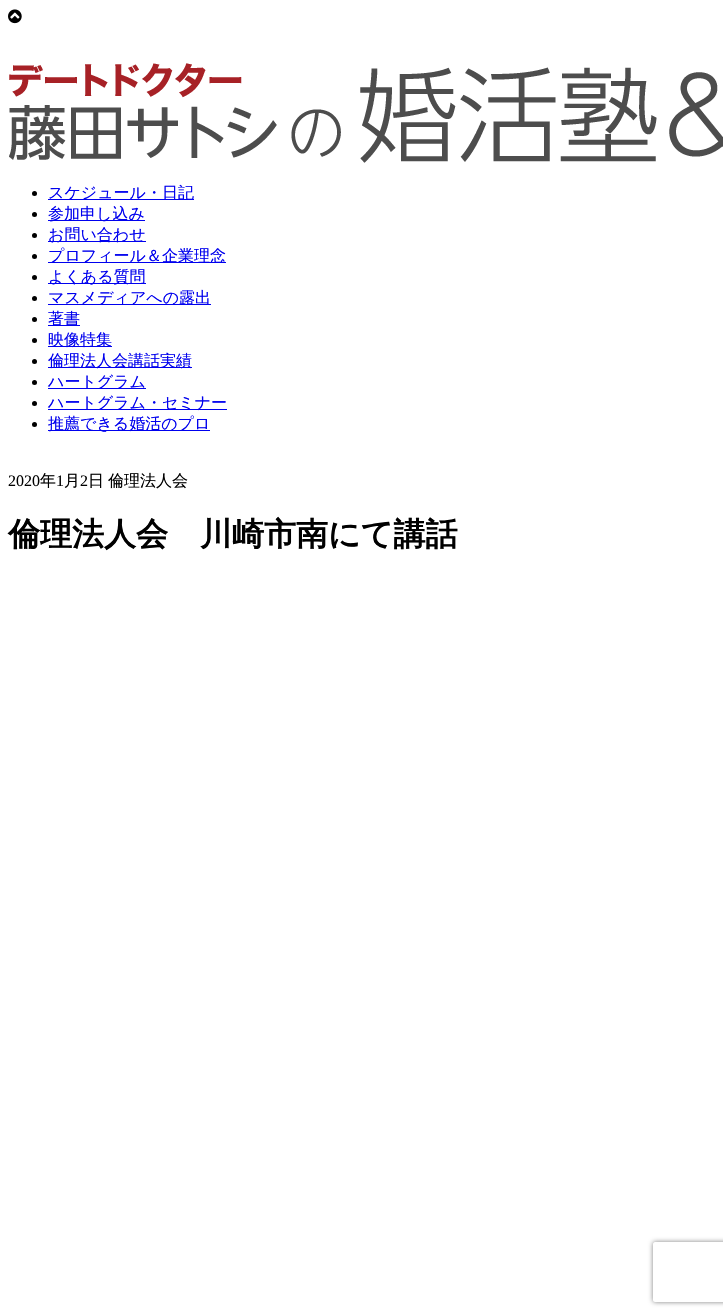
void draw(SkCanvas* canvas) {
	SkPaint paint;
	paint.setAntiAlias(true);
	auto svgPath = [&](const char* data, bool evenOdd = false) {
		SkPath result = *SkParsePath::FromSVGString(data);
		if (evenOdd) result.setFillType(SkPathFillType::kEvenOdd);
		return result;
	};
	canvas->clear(0xffffffff);
	canvas->drawImageRect(SkImages::DeferredFromEncodedData(SkData::MakeFromFileName("img1.png")), SkRect::MakeXYWH(8, 9, 14, 15), SkSamplingOptions());
	canvas->drawImageRect(SkImages::DeferredFromEncodedData(SkData::MakeFromFileName("img2.png")), SkRect::MakeXYWH(9, 63, 714, 100), SkSamplingOptions());
	paint.setColor(0xff000000);
	canvas->drawCircle(34.5, 193.5, 2.5, paint);
	paint.setColor(0xff0000ee);
	canvas->drawRect(SkRect::MakeXYWH(48, 199, 146, 1), paint);
	SkFont f1(fontMgr->matchFamilyStyle("WenQuanYi Zen Hei", SkFontStyle(500, SkFontStyle::kNormal_Width, SkFontStyle::kUpright_Slant)), 16);
	f1.setSubpixel(true);
	canvas->drawString("スケジュール・日記", 48, 198, f1, paint);
	paint.setColor(0xff000000);
	canvas->drawCircle(34.5, 214.5, 2.5, paint);
	paint.setColor(0xff0000ee);
	canvas->drawRect(SkRect::MakeXYWH(48, 220, 97, 1), paint);
	canvas->drawString("参加申し込み", 48, 219, f1, paint);
	paint.setColor(0xff000000);
	canvas->drawCircle(34.5, 235.5, 2.5, paint);
	paint.setColor(0xff0000ee);
	canvas->drawRect(SkRect::MakeXYWH(48, 241, 98, 1), paint);
	canvas->drawString("お問い合わせ", 48, 240, f1, paint);
	paint.setColor(0xff000000);
	canvas->drawCircle(34.5, 256.5, 2.5, paint);
	paint.setColor(0xff0000ee);
	canvas->drawRect(SkRect::MakeXYWH(48, 262, 178, 1), paint);
	canvas->drawString("プロフィール＆企業理念", 48, 261, f1, paint);
	paint.setColor(0xff000000);
	canvas->drawCircle(34.5, 277.5, 2.5, paint);
	paint.setColor(0xff0000ee);
	canvas->drawRect(SkRect::MakeXYWH(48, 283, 98, 1), paint);
	canvas->drawString("よくある質問", 48, 282, f1, paint);
	paint.setColor(0xff000000);
	canvas->drawCircle(34.5, 298.5, 2.5, paint);
	paint.setColor(0xff0000ee);
	canvas->drawRect(SkRect::MakeXYWH(48, 304, 163, 1), paint);
	canvas->drawString("マスメディアへの露出", 48, 303, f1, paint);
	paint.setColor(0xff000000);
	canvas->drawCircle(34.5, 319.5, 2.5, paint);
	paint.setColor(0xff0000ee);
	canvas->drawRect(SkRect::MakeXYWH(48, 325, 32, 1), paint);
	canvas->drawString("著書", 48, 324, f1, paint);
	paint.setColor(0xff000000);
	canvas->drawCircle(34.5, 340.5, 2.5, paint);
	paint.setColor(0xff0000ee);
	canvas->drawRect(SkRect::MakeXYWH(48, 346, 64, 1), paint);
	canvas->drawString("映像特集", 48, 345, f1, paint);
	paint.setColor(0xff000000);
	canvas->drawCircle(34.5, 361.5, 2.5, paint);
	paint.setColor(0xff0000ee);
	canvas->drawRect(SkRect::MakeXYWH(48, 367, 144, 1), paint);
	canvas->drawString("倫理法人会講話実績", 48, 366, f1, paint);
	paint.setColor(0xff000000);
	canvas->drawCircle(34.5, 382.5, 2.5, paint);
	paint.setColor(0xff0000ee);
	canvas->drawRect(SkRect::MakeXYWH(48, 388, 98, 1), paint);
	canvas->drawString("ハートグラム", 48, 387, f1, paint);
	paint.setColor(0xff000000);
	canvas->drawCircle(34.5, 403.5, 2.5, paint);
	paint.setColor(0xff0000ee);
	canvas->drawRect(SkRect::MakeXYWH(48, 409, 179, 1), paint);
	canvas->drawString("ハートグラム・セミナー", 48, 408, f1, paint);
	paint.setColor(0xff000000);
	canvas->drawCircle(34.5, 424.5, 2.5, paint);
	paint.setColor(0xff0000ee);
	canvas->drawRect(SkRect::MakeXYWH(48, 430, 162, 1), paint);
	canvas->drawString("推薦できる婚活のプロ", 48, 429, f1, paint);
	SkFont f2(fontMgr->matchFamilyStyle("Liberation Serif", SkFontStyle::Normal()), 16);
	f2.setSubpixel(true);
	paint.setColor(0xff000000);
	canvas->drawString("2020", 8, 486, f2, paint);
	canvas->drawString("年", 40, 486, f1, paint);
	canvas->drawString("1", 56, 486, f2, paint);
	canvas->drawString("月", 64, 486, f1, paint);
	canvas->drawString("2", 80, 486, f2, paint);
	canvas->drawString("日", 88, 486, f1, paint);
	canvas->drawString("倫理法人会", 108, 486, f1, paint);
	SkFont f3(fontMgr->matchFamilyStyle("WenQuanYi Zen Hei", SkFontStyle::Bold()), 32);
	f3.setSubpixel(true);
	canvas->drawString("倫理法人会　川崎市南にて講話", 8, 545, f3, paint);
	canvas->save();
	canvas->clipPath(svgPath("M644 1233H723V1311H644ZM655 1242H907C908 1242 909 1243 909 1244V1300C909 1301 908 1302 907 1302H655C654 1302 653 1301 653 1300V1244C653 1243 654 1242 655 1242Z", true), true);
	paint.setColor(0xff808080);
	paint.setMaskFilter(SkMaskFilter::MakeBlur(kNormal_SkBlurStyle, 2.5));
	canvas->drawRoundRect(SkRect::MakeXYWH(653, 1242, 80, 60), 2, 2, paint);
	paint.setMaskFilter(nullptr);
	canvas->restore();
}
